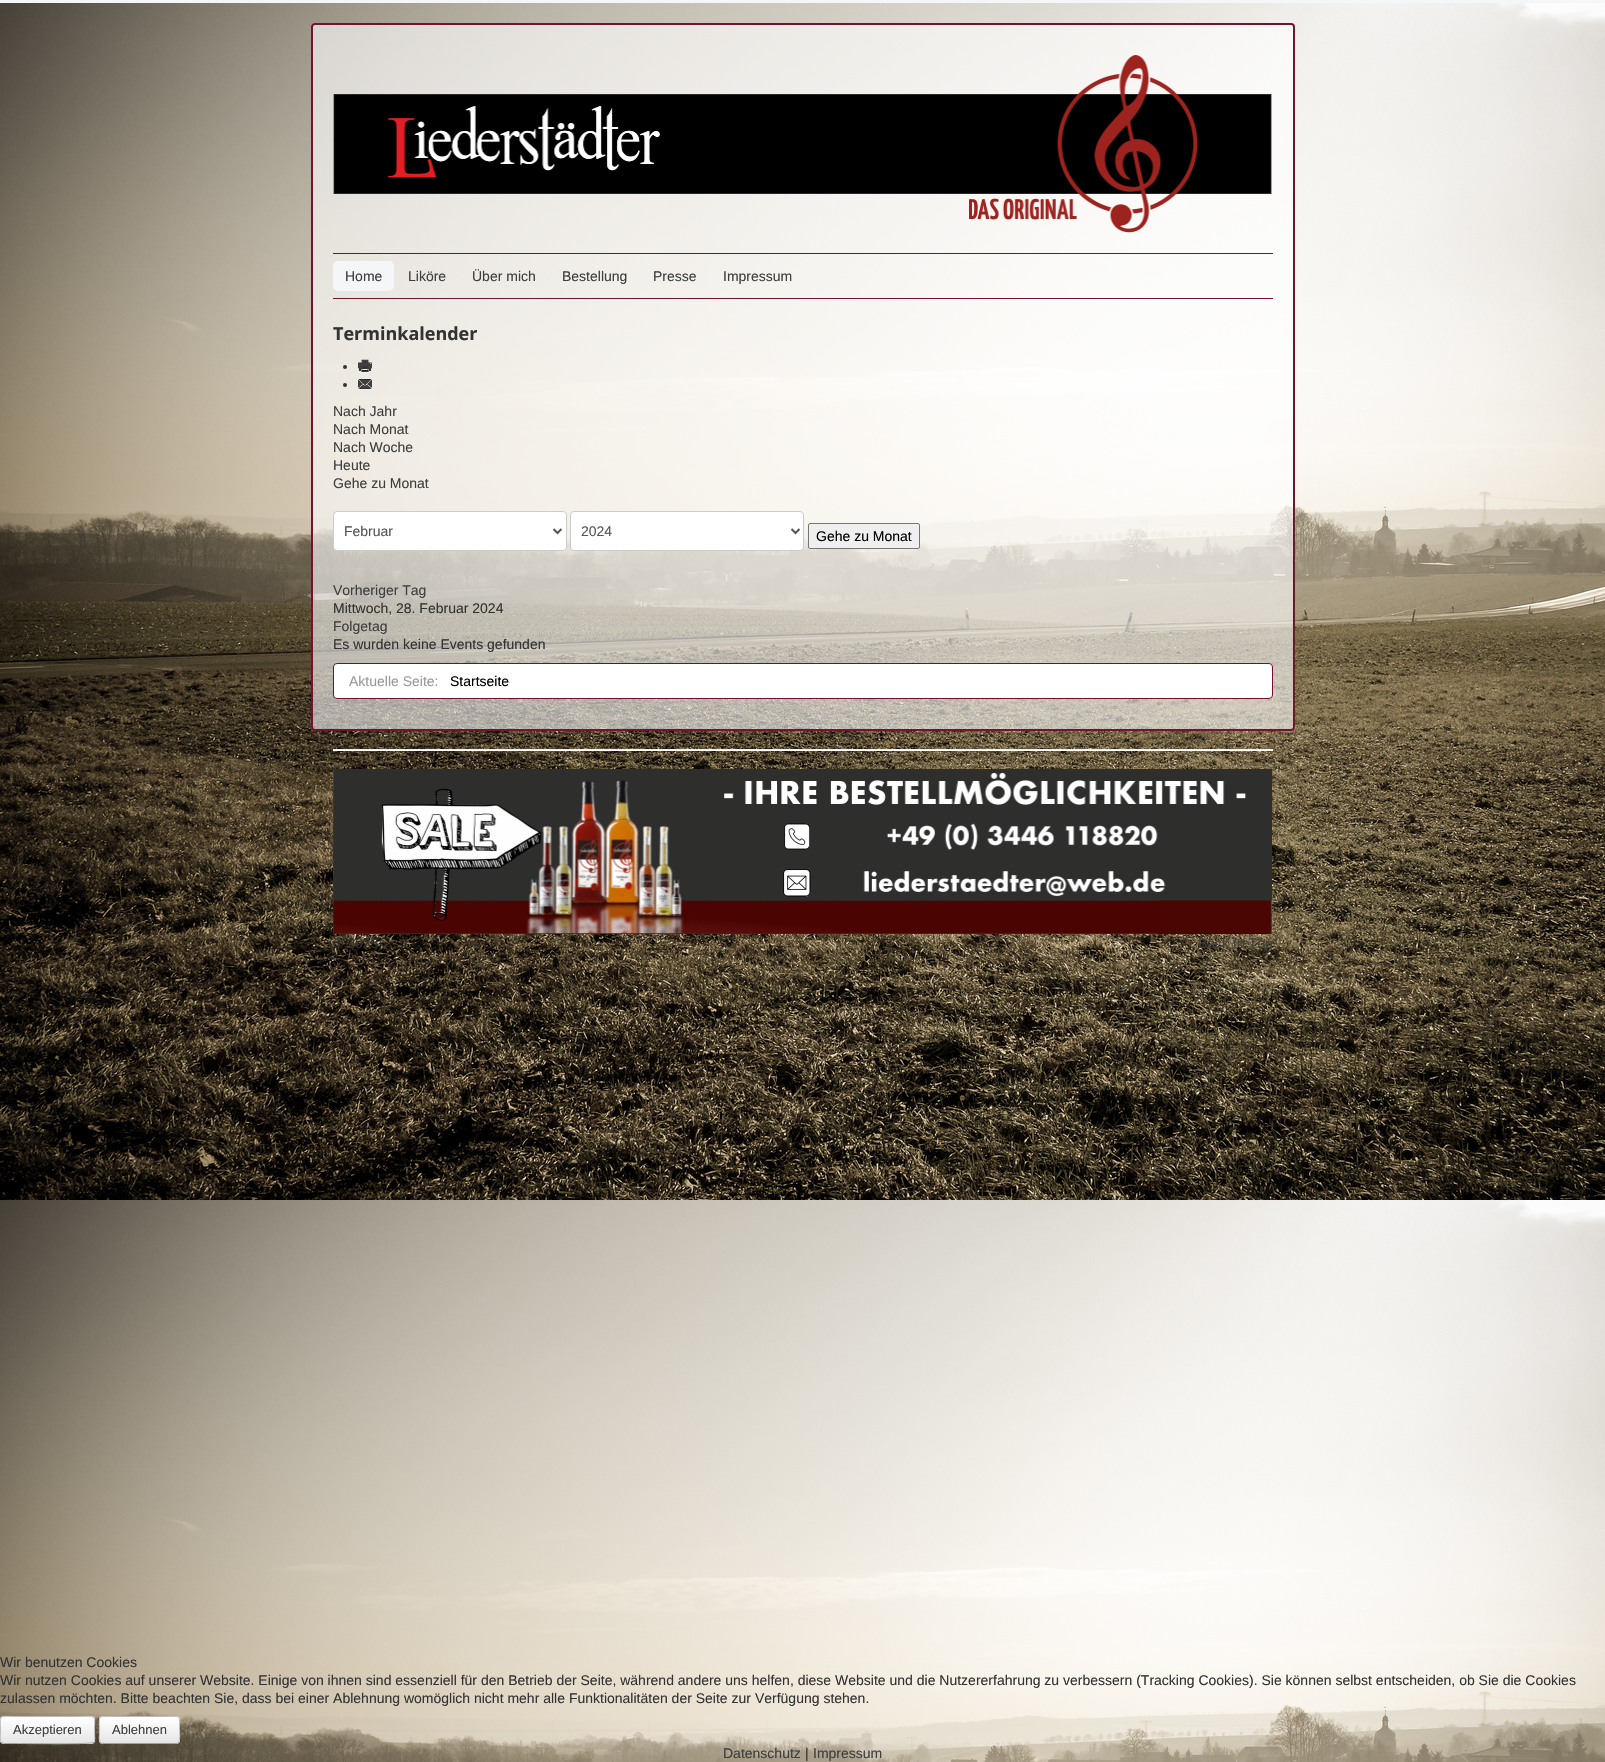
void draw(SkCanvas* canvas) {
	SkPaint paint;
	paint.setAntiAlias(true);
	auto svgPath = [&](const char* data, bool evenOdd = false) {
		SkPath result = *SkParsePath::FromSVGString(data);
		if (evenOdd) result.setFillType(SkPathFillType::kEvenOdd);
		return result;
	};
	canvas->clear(0xffffffff);
	canvas->drawImageRect(SkImages::DeferredFromEncodedData(SkData::MakeFromFileName("img1.png")), SkRect::MakeXYWH(0, 3, 1605, 1759), SkSamplingOptions());
	paint.setColor(0xfff4f6f7);
	canvas->drawRect(SkRect::MakeXYWH(0, 0, 1605, 3), paint);
	paint.setColor(0x99ffffff);
	canvas->drawRoundRect(SkRect::MakeXYWH(311, 23, 984, 708), 4, 4, paint);
	paint.setStroke(true);
	paint.setStrokeWidth(2);
	paint.setColor(0xfc6f112b);
	canvas->drawRoundRect(SkRect::MakeXYWH(312, 24, 982, 706), 3, 3, paint);
	canvas->drawImageRect(SkImages::DeferredFromEncodedData(SkData::MakeFromFileName("img2.png")), SkRect::MakeXYWH(333, 55, 939, 178), SkSamplingOptions());
	paint.setStroke(false);
	canvas->drawRect(SkRect::MakeXYWH(333, 253, 940, 1), paint);
	canvas->drawRect(SkRect::MakeXYWH(333, 298, 940, 1), paint);
	paint.setColor(0xfff4f6f7);
	canvas->drawRoundRect(SkRect::MakeXYWH(333, 261, 61, 30), 5, 5, paint);
	SkFont f1(fontMgr->matchFamilyStyle("Liberation Sans", SkFontStyle::Normal()), 14);
	f1.setSubpixel(true);
	paint.setColor(0xff3f3f3f);
	canvas->drawString("Home", 345, 281, f1, paint);
	canvas->drawString("Liköre", 408, 281, f1, paint);
	canvas->drawString("Über mich", 472, 281, f1, paint);
	canvas->drawString("Bestellung", 562, 281, f1, paint);
	canvas->drawString("Presse", 653, 281, f1, paint);
	canvas->drawString("Impressum", 723, 281, f1, paint);
	SkFont f2(fontMgr->matchFamilyStyle("Open Sans", SkFontStyle::Bold()), 18);
	f2.setSubpixel(true);
	paint.setColor(0xff333333);
	canvas->drawString("Terminkalender", 333, 340, f2, paint);
	canvas->drawCircle(345, 367, 2, paint);
	canvas->drawImageRect(SkImages::DeferredFromEncodedData(SkData::MakeFromFileName("img3.png")), SkRect::MakeXYWH(359, 361, 12, 12), SkSamplingOptions());
	canvas->drawImageRect(SkImages::DeferredFromEncodedData(SkData::MakeFromFileName("img4.png")), SkRect::MakeXYWH(358, 359, 14, 13), SkSamplingOptions());
	canvas->drawCircle(345, 385, 2, paint);
	canvas->drawImageRect(SkImages::DeferredFromEncodedData(SkData::MakeFromFileName("img5.png")), SkRect::MakeXYWH(359, 379, 12, 11), SkSamplingOptions());
	canvas->drawImageRect(SkImages::DeferredFromEncodedData(SkData::MakeFromFileName("img6.png")), SkRect::MakeXYWH(358, 379, 14, 10), SkSamplingOptions());
	paint.setColor(0xff3f3f3f);
	canvas->drawString("Nach Jahr", 333, 416, f1, paint);
	canvas->drawString("Nach Monat", 333, 434, f1, paint);
	canvas->drawString("Nach Woche", 333, 452, f1, paint);
	canvas->drawString("Heute", 333, 470, f1, paint);
	canvas->drawString("Gehe zu Monat", 333, 488, f1, paint);
	paint.setColor(0xffffffff);
	canvas->drawRoundRect(SkRect::MakeXYWH(333.5, 511.5, 233, 39), 3.5, 3.5, paint);
	paint.setStroke(true);
	paint.setStrokeWidth(1);
	paint.setColor(0xffcccccc);
	canvas->drawRoundRect(SkRect::MakeXYWH(333.5, 511.5, 233, 39), 3.5, 3.5, paint);
	paint.setStrokeWidth(2);
	paint.setColor(0xff555555);
	canvas->drawPath(svgPath("M553.5 529L557.5 533L561.5 529"), paint);
	paint.setStroke(false);
	canvas->drawString("Februar", 344, 536, f1, paint);
	paint.setColor(0xffffffff);
	canvas->drawRoundRect(SkRect::MakeXYWH(570.5, 511.5, 233, 39), 3.5, 3.5, paint);
	paint.setStroke(true);
	paint.setStrokeWidth(1);
	paint.setColor(0xffcccccc);
	canvas->drawRoundRect(SkRect::MakeXYWH(570.5, 511.5, 233, 39), 3.5, 3.5, paint);
	paint.setStrokeWidth(2);
	paint.setColor(0xff555555);
	canvas->drawPath(svgPath("M791.5 529L795.5 533L799.5 529"), paint);
	paint.setStroke(false);
	canvas->drawString("2024", 581, 536, f1, paint);
	paint.setColor(0xffefefef);
	canvas->drawRoundRect(SkRect::MakeXYWH(808.5, 523.5, 111, 25), 1.5, 1.5, paint);
	paint.setStroke(true);
	paint.setStrokeWidth(1);
	paint.setColor(0xff767676);
	canvas->drawRoundRect(SkRect::MakeXYWH(808.5, 523.5, 111, 25), 1.5, 1.5, paint);
	paint.setStroke(false);
	paint.setColor(0xff000000);
	canvas->drawString("Gehe zu Monat", 816, 541, f1, paint);
	paint.setColor(0xff3f3f3f);
	canvas->drawString("Vorheriger Tag", 333, 595, f1, paint);
	paint.setColor(0xff333333);
	canvas->drawString("Mittwoch, 28. Februar 2024", 333, 613, f1, paint);
	paint.setColor(0xff3f3f3f);
	canvas->drawString("Folgetag", 333, 631, f1, paint);
	paint.setColor(0xff333333);
	canvas->drawString("Es wurden keine Events gefunden", 333, 649, f1, paint);
	paint.setColor(0xffffffff);
	canvas->drawRoundRect(SkRect::MakeXYWH(333.5, 663.5, 939, 35), 3.5, 3.5, paint);
	paint.setStroke(true);
	paint.setColor(0xff6f112b);
	canvas->drawRoundRect(SkRect::MakeXYWH(333.5, 663.5, 939, 35), 3.5, 3.5, paint);
	paint.setStroke(false);
	paint.setColor(0xff999999);
	canvas->drawString("Aktuelle Seite:", 349, 686, f1, paint);
	paint.setColor(0xff000000);
	canvas->drawString("Startseite", 450, 686, f1, paint);
	paint.setColor(0xffeeeeee);
	canvas->drawRect(SkRect::MakeXYWH(333, 749, 940, 1), paint);
	paint.setColor(0xffffffff);
	canvas->drawRect(SkRect::MakeXYWH(333, 750, 940, 1), paint);
	canvas->drawImageRect(SkImages::DeferredFromEncodedData(SkData::MakeFromFileName("img7.png")), SkRect::MakeXYWH(333, 769, 939, 165), SkSamplingOptions());
	paint.setColor(0xff333333);
	canvas->drawString("© 2025", 333, 948, f1, paint);
	paint.setColor(0xff3f3f3f);
	canvas->drawString("Back to Top", 1198, 948, f1, paint);
	paint.setColor(0xff333333);
	canvas->drawString("Wir benutzen Cookies", 0, 1667, f1, paint);
	canvas->drawString("Wir nutzen Cookies auf unserer Website. Einige von ihnen sind essenziell für den Betrieb der Seite, während andere uns helfen, diese Website und die Nutzererfahrung zu verbessern (Tracking Cookies). Sie können selbst entscheiden, ob Sie die Cookies", 0, 1685, f1, paint);
	canvas->drawString("zulassen möchten. Bitte beachten Sie, dass bei einer Ablehnung womöglich nicht mehr alle Funktionalitäten der Seite zur Verfügung stehen.", 0, 1703, f1, paint);
	paint.setColor(0xfff5f5f5);
	canvas->drawRoundRect(SkRect::MakeXYWH(0, 1716, 95, 28), 4, 4, paint);
	canvas->save();
	canvas->clipPath(svgPath("M4 1716H91C93 1716 95 1718 95 1720V1740C95 1742 93 1744 91 1744H4C2 1744 0 1742 0 1740V1720C0 1718 2 1716 4 1716Z"), true);
	{
		const SkColor colors[] = {0xffffffff, 0xffe6e6e6};
		const float stops[] = {0, 1};
		const SkPoint ends[] = {{48, 1717}, {48, 1743}};
		paint.setShader(SkGradientShader::MakeLinear(ends, colors, stops, 2, SkTileMode::kClamp));
		paint.setAlpha(255);
	}
	canvas->drawRect(SkRect::MakeXYWH(0, 1717, 95, 26), paint);
	canvas->restore();
	paint.setStroke(true);
	paint.setShader(nullptr);
	paint.setColor(0xffa2a2a2);
	canvas->drawPath(svgPath("M93.5 1742.5H93C91 1744.5 27 1743.5 18.5 1743.5H4L1.5 1742.5"), paint);
	paint.setColor(0xffbbbbbb);
	canvas->drawPath(svgPath("M1.5 1742.5C-.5 1740.5 .5 1736 .5 1733.5C.5 1713.5-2.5 1716.5 18.5 1716.5H76.5C97.5 1716.5 94.5 1713.5 94.5 1733.5C94.5 1736 95.5 1740.5 93.5 1742.5"), paint);
	SkFont f3(fontMgr->matchFamilyStyle("Liberation Sans", SkFontStyle::Normal()), 13);
	f3.setSubpixel(true);
	paint.setStroke(false);
	paint.setColor(0xff3f3f3f);
	canvas->drawString("Akzeptieren", 13, 1734, f3, paint);
	paint.setColor(0xfff5f5f5);
	canvas->drawRoundRect(SkRect::MakeXYWH(99, 1716, 81, 28), 4, 4, paint);
	canvas->save();
	canvas->clipPath(svgPath("M103 1716H176C178 1716 180 1718 180 1720V1740C180 1742 178 1744 176 1744H103C101 1744 99 1742 99 1740V1720C99 1718 101 1716 103 1716Z"), true);
	{
		const SkColor colors[] = {0xffffffff, 0xffe6e6e6};
		const float stops[] = {0, 1};
		const SkPoint ends[] = {{140, 1717}, {140, 1743}};
		paint.setShader(SkGradientShader::MakeLinear(ends, colors, stops, 2, SkTileMode::kClamp));
		paint.setAlpha(255);
	}
	canvas->drawRect(SkRect::MakeXYWH(99, 1717, 81, 26), paint);
	canvas->restore();
	paint.setStroke(true);
	paint.setShader(nullptr);
	paint.setColor(0xffa2a2a2);
	canvas->drawPath(svgPath("M178.5 1742.5C178 1743 177 1743.5 176 1743.5H103C102 1743.5 101 1743 100.5 1742.5"), paint);
	paint.setColor(0xffbbbbbb);
	canvas->drawPath(svgPath("M100.5 1742.5C98.5 1740.5 99.5 1736 99.5 1733.5C99.5 1714.5 96 1716.5 115 1716.5H164C181 1716.5 179.5 1714 179.5 1730C179.5 1732.5 180.5 1740 178.5 1742.5"), paint);
	paint.setStroke(false);
	paint.setColor(0xff3f3f3f);
	canvas->drawString("Ablehnen", 112, 1734, f3, paint);
	canvas->drawString("Datenschutz", 723, 1758, f1, paint);
	paint.setColor(0xff333333);
	canvas->drawString("|", 805, 1758, f1, paint);
	paint.setColor(0xff3f3f3f);
	canvas->drawString("Impressum", 813, 1758, f1, paint);
}
